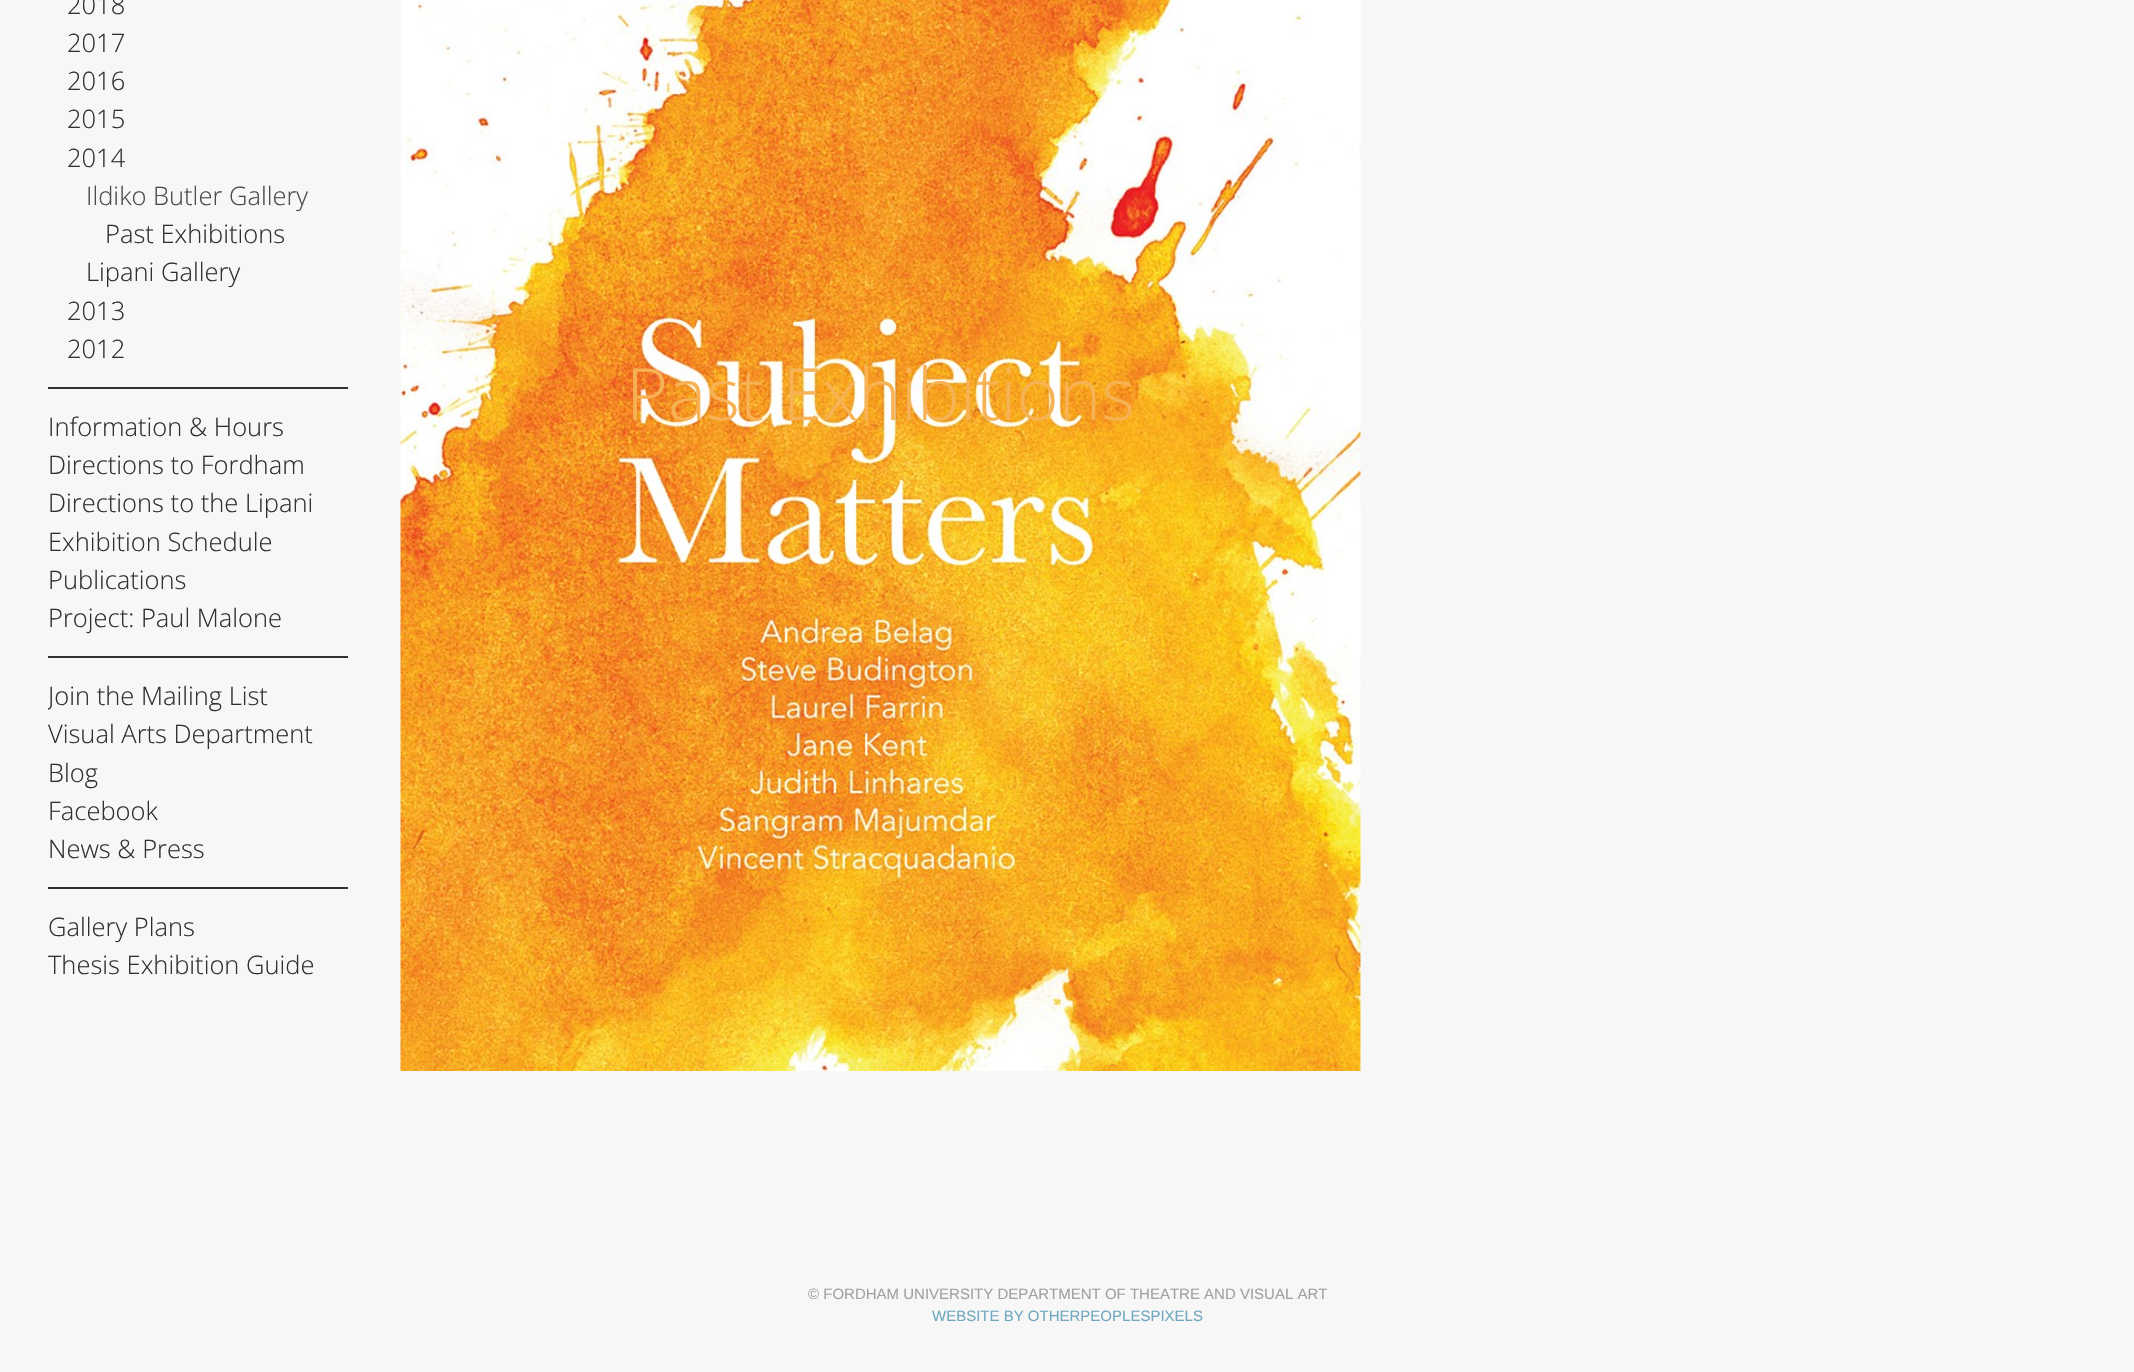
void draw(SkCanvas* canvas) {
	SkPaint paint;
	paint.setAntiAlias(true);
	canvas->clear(0xfff7f7f7);
	SkFont f1(fontMgr->matchFamilyStyle("Open Sans", SkFontStyle(300, SkFontStyle::kNormal_Width, SkFontStyle::kUpright_Slant)), 25.5);
	f1.setSubpixel(true);
	paint.setColor(0xff303030);
	canvas->drawString("2018", 67, 14, f1, paint);
	canvas->drawString("2017", 67, 52, f1, paint);
	canvas->drawString("2016", 67, 90, f1, paint);
	canvas->drawString("2015", 67, 128, f1, paint);
	canvas->drawString("2014", 67, 167, f1, paint);
	paint.setColor(0xff4a4a4a);
	canvas->drawString("Ildiko Butler Gallery", 86, 205, f1, paint);
	paint.setColor(0xff303030);
	canvas->drawString("Past Exhibitions", 105, 243, f1, paint);
	canvas->drawString("Lipani Gallery", 86, 281, f1, paint);
	canvas->drawString("2013", 67, 320, f1, paint);
	canvas->drawString("2012", 67, 358, f1, paint);
	canvas->drawRect(SkRect::MakeXYWH(48, 387, 300, 2), paint);
	canvas->drawString("Information & Hours", 48, 436, f1, paint);
	canvas->drawString("Directions to Fordham", 48, 474, f1, paint);
	canvas->drawString("Directions to the Lipani", 48, 512, f1, paint);
	canvas->drawString("Exhibition Schedule", 48, 551, f1, paint);
	canvas->drawString("Publications", 48, 589, f1, paint);
	canvas->drawString("Project: Paul Malone", 48, 627, f1, paint);
	canvas->drawRect(SkRect::MakeXYWH(48, 656, 300, 2), paint);
	canvas->save();
	canvas->clipRect(SkRect::MakeXYWH(48, 677, 300, 39));
	canvas->drawString("Join the Mailing List", 48, 705, f1, paint);
	canvas->restore();
	canvas->drawString("Visual Arts Department", 48, 743, f1, paint);
	canvas->drawString("Blog", 48, 782, f1, paint);
	canvas->drawString("Facebook", 48, 820, f1, paint);
	canvas->drawString("News & Press", 48, 858, f1, paint);
	canvas->drawRect(SkRect::MakeXYWH(48, 887, 300, 2), paint);
	canvas->drawString("Gallery Plans", 48, 936, f1, paint);
	canvas->drawString("Thesis Exhibition Guide", 48, 974, f1, paint);
	canvas->drawImageRect(SkImages::DeferredFromEncodedData(SkData::MakeFromFileName("img1.png")), SkRect::MakeXYWH(400, 0, 961, 1071), SkSamplingOptions());
	SkFont f2(fontMgr->matchFamilyStyle("Open Sans", SkFontStyle(300, SkFontStyle::kNormal_Width, SkFontStyle::kUpright_Slant)), 72);
	f2.setSubpixel(true);
	paint.setColor(0xfff6b254);
	canvas->drawString("Past Exhibitions", 626, 420, f2, paint);
	SkFont f3(fontMgr->matchFamilyStyle("Liberation Sans", SkFontStyle::Normal()), 15);
	f3.setSubpixel(true);
	paint.setColor(0xffa1a1a1);
	canvas->drawString("© FORDHAM UNIVERSITY DEPARTMENT OF THEATRE AND VISUAL ART", 808, 1299, f3, paint);
	paint.setColor(0xff70a8c0);
	canvas->drawString("WEBSITE BY OTHERPEOPLESPIXELS", 932, 1321, f3, paint);
}
